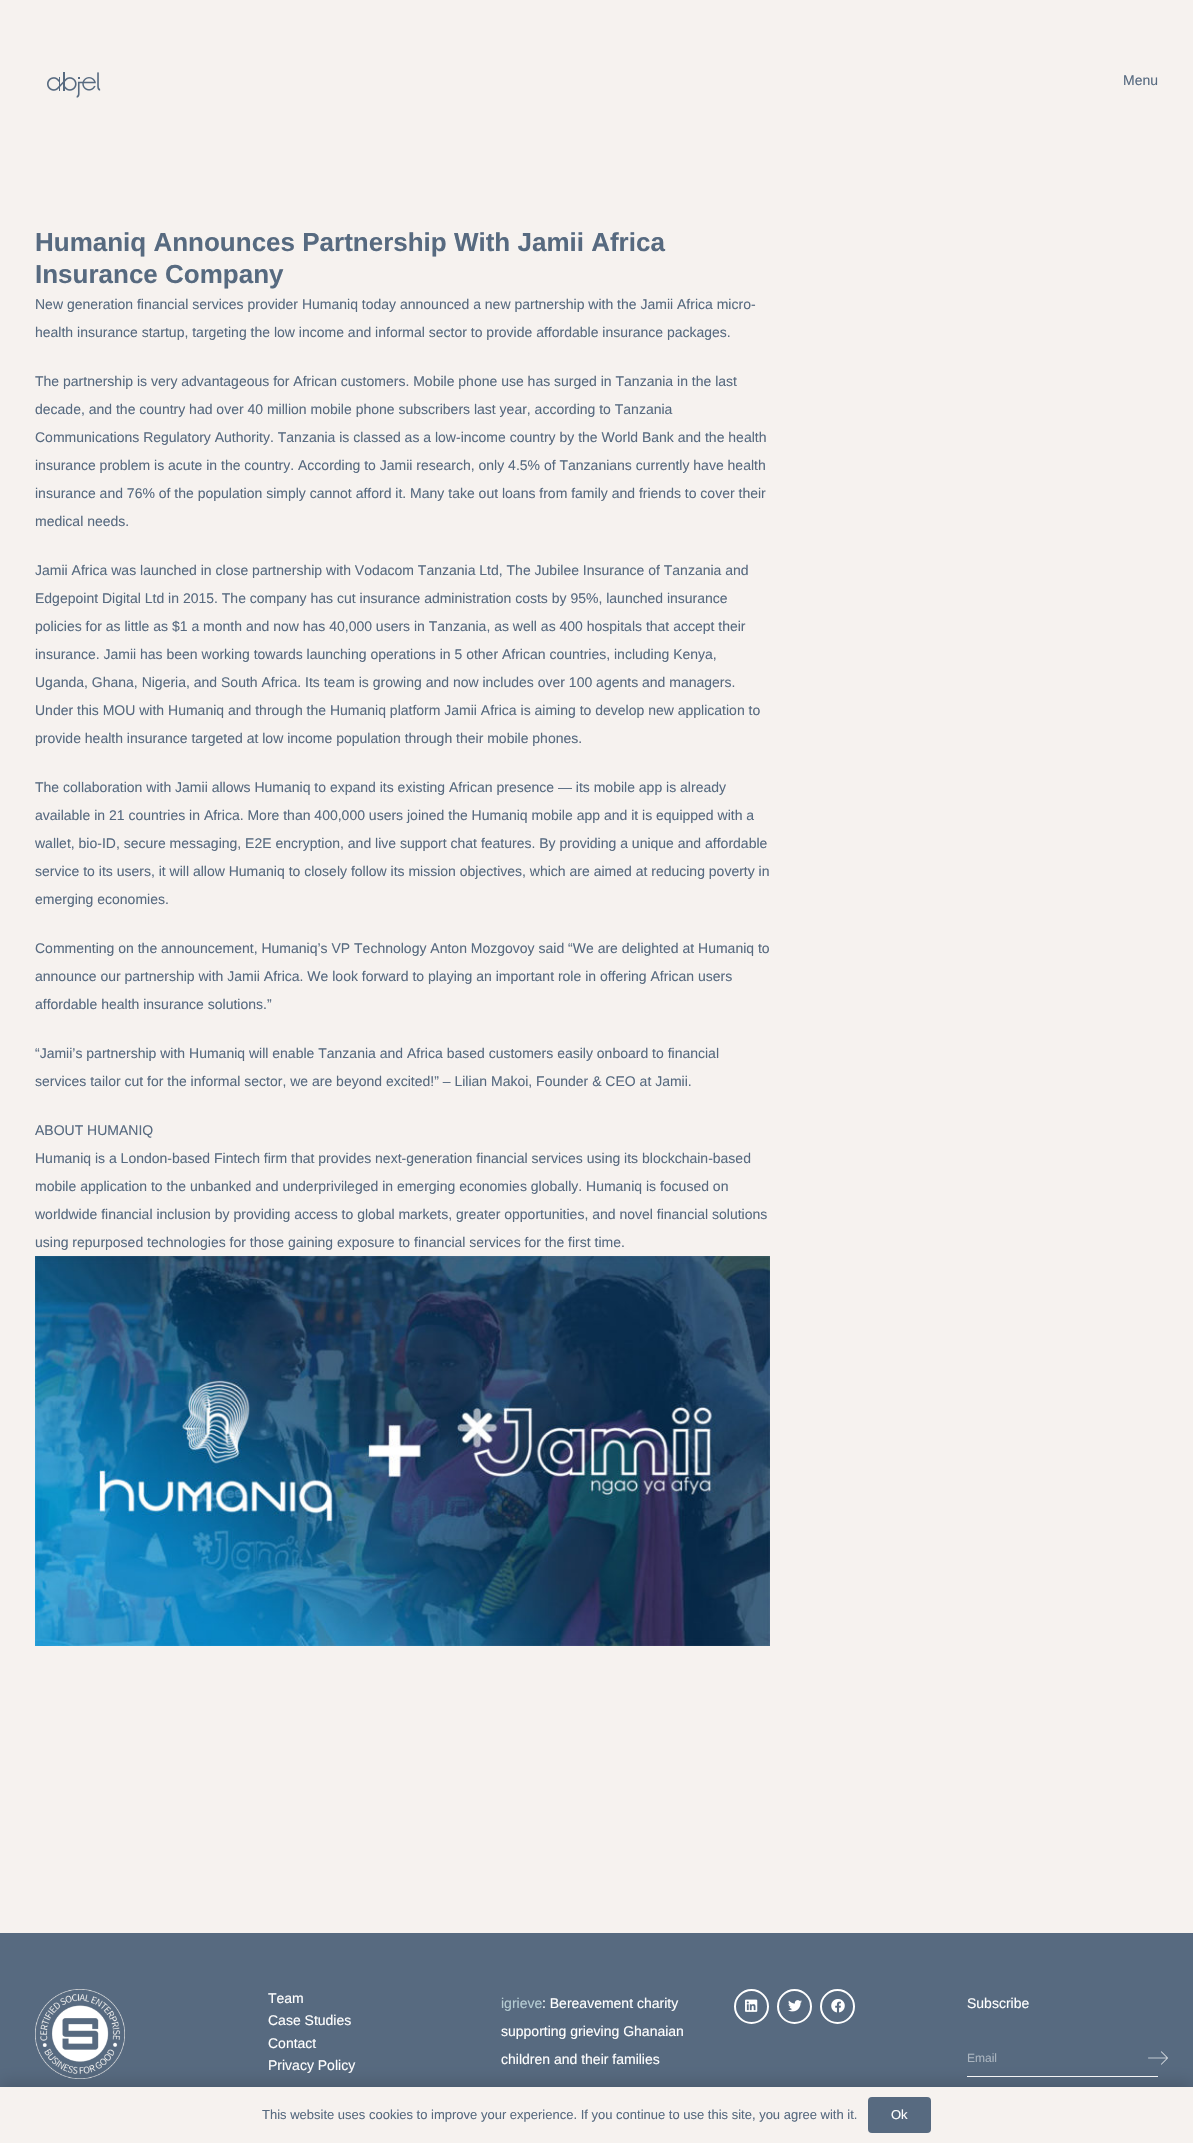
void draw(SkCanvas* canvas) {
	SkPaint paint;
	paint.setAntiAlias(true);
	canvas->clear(0xfff6f2ef);
	canvas->drawImageRect(SkImages::DeferredFromEncodedData(SkData::MakeFromFileName("img1.png")), SkRect::MakeXYWH(47, 72, 54, 26), SkSamplingOptions());
	SkFont f1(fontMgr->matchFamilyStyle("Liberation Sans", SkFontStyle::Normal()), 14);
	f1.setSubpixel(true);
	paint.setColor(0xff576a80);
	canvas->drawString("Menu", 1123, 85, f1, paint);
	SkFont f2(fontMgr->matchFamilyStyle("Liberation Sans", SkFontStyle::Bold()), 26);
	f2.setSubpixel(true);
	canvas->drawString("Humaniq Announces Partnership With Jamii Africa", 35, 251, f2, paint);
	canvas->drawString("Insurance Company", 35, 283, f2, paint);
	canvas->drawString("New generation financial services provider Humaniq today announced a new partnership with the Jamii Africa micro-", 35, 309, f1, paint);
	canvas->drawString("health insurance startup, targeting the low income and informal sector to provide affordable insurance packages.", 35, 337, f1, paint);
	canvas->drawString("The partnership is very advantageous for African customers. Mobile phone use has surged in Tanzania in the last", 35, 386, f1, paint);
	canvas->drawString("decade, and the country had over 40 million mobile phone subscribers last year, according to Tanzania", 35, 414, f1, paint);
	canvas->drawString("Communications Regulatory Authority. Tanzania is classed as a low-income country by the World Bank and the health", 35, 442, f1, paint);
	canvas->drawString("insurance problem is acute in the country. According to Jamii research, only 4.5% of Tanzanians currently have health", 35, 470, f1, paint);
	canvas->drawString("insurance and 76% of the population simply cannot afford it. Many take out loans from family and friends to cover their", 35, 498, f1, paint);
	canvas->drawString("medical needs.", 35, 526, f1, paint);
	canvas->drawString("Jamii Africa was launched in close partnership with Vodacom Tanzania Ltd, The Jubilee Insurance of Tanzania and", 35, 575, f1, paint);
	canvas->drawString("Edgepoint Digital Ltd in 2015. The company has cut insurance administration costs by 95%, launched insurance", 35, 603, f1, paint);
	canvas->drawString("policies for as little as $1 a month and now has 40,000 users in Tanzania, as well as 400 hospitals that accept their", 35, 631, f1, paint);
	canvas->drawString("insurance. Jamii has been working towards launching operations in 5 other African countries, including Kenya,", 35, 659, f1, paint);
	canvas->drawString("Uganda, Ghana, Nigeria, and South Africa. Its team is growing and now includes over 100 agents and managers.", 35, 687, f1, paint);
	canvas->drawString("Under this MOU with Humaniq and through the Humaniq platform Jamii Africa is aiming to develop new application to", 35, 715, f1, paint);
	canvas->drawString("provide health insurance targeted at low income population through their mobile phones.", 35, 743, f1, paint);
	canvas->drawString("The collaboration with Jamii allows Humaniq to expand its existing African presence — its mobile app is already", 35, 792, f1, paint);
	canvas->drawString("available in 21 countries in Africa. More than 400,000 users joined the Humaniq mobile app and it is equipped with a", 35, 820, f1, paint);
	canvas->drawString("wallet, bio-ID, secure messaging, E2E encryption, and live support chat features. By providing a unique and affordable", 35, 848, f1, paint);
	canvas->drawString("service to its users, it will allow Humaniq to closely follow its mission objectives, which are aimed at reducing poverty in", 35, 876, f1, paint);
	canvas->drawString("emerging economies.", 35, 904, f1, paint);
	canvas->drawString("Commenting on the announcement, Humaniq’s VP Technology Anton Mozgovoy said “We are delighted at Humaniq to", 35, 953, f1, paint);
	canvas->drawString("announce our partnership with Jamii Africa. We look forward to playing an important role in offering African users", 35, 981, f1, paint);
	canvas->drawString("affordable health insurance solutions.”", 35, 1009, f1, paint);
	canvas->drawString("“Jamii’s partnership with Humaniq will enable Tanzania and Africa based customers easily onboard to financial", 35, 1058, f1, paint);
	canvas->drawString("services tailor cut for the informal sector, we are beyond excited!” – Lilian Makoi, Founder & CEO at Jamii.", 35, 1086, f1, paint);
	canvas->drawString("ABOUT HUMANIQ", 35, 1135, f1, paint);
	canvas->drawString("Humaniq is a London-based Fintech firm that provides next-generation financial services using its blockchain-based", 35, 1163, f1, paint);
	canvas->drawString("mobile application to the unbanked and underprivileged in emerging economies globally. Humaniq is focused on", 35, 1191, f1, paint);
	canvas->drawString("worldwide financial inclusion by providing access to global markets, greater opportunities, and novel financial solutions", 35, 1219, f1, paint);
	canvas->drawString("using repurposed technologies for those gaining exposure to financial services for the first time.", 35, 1247, f1, paint);
	canvas->drawImageRect(SkImages::DeferredFromEncodedData(SkData::MakeFromFileName("img2.png")), SkRect::MakeXYWH(35, 1256, 735, 390), SkSamplingOptions());
	canvas->drawRect(SkRect::MakeXYWH(0, 1933, 1193, 154), paint);
	canvas->drawImageRect(SkImages::DeferredFromEncodedData(SkData::MakeFromFileName("img3.png")), SkRect::MakeXYWH(35, 1989, 90, 90), SkSamplingOptions());
	paint.setColor(0xffffffff);
	canvas->drawString("Team", 268, 2003, f1, paint);
	canvas->drawString("Case Studies", 268, 2025, f1, paint);
	canvas->drawString("Contact", 268, 2048, f1, paint);
	canvas->drawString("Privacy Policy", 268, 2070, f1, paint);
	paint.setColor(0xffb5ccd3);
	canvas->drawString("igrieve", 501, 2008, f1, paint);
	paint.setColor(0xffffffff);
	canvas->drawString(": Bereavement charity", 542, 2008, f1, paint);
	canvas->drawString("supporting grieving Ghanaian", 501, 2036, f1, paint);
	canvas->drawString("children and their families", 501, 2064, f1, paint);
	paint.setStroke(true);
	paint.setStrokeWidth(2);
	canvas->drawCircle(751.5, 2006.5, 16.5, paint);
	canvas->drawImageRect(SkImages::DeferredFromEncodedData(SkData::MakeFromFileName("img4.png")), SkRect::MakeXYWH(745, 1999, 13, 13), SkSamplingOptions());
	canvas->drawCircle(794.5, 2006.5, 16.5, paint);
	canvas->drawImageRect(SkImages::DeferredFromEncodedData(SkData::MakeFromFileName("img5.png")), SkRect::MakeXYWH(788, 2000, 14, 12), SkSamplingOptions());
	canvas->drawCircle(837.5, 2006.5, 16.5, paint);
	canvas->drawImageRect(SkImages::DeferredFromEncodedData(SkData::MakeFromFileName("img6.png")), SkRect::MakeXYWH(831, 1999, 14, 14), SkSamplingOptions());
	paint.setStroke(false);
	canvas->drawString("Subscribe", 967, 2008, f1, paint);
	canvas->drawRect(SkRect::MakeXYWH(967, 2076, 191, 1), paint);
	SkFont f3(fontMgr->matchFamilyStyle("Liberation Sans", SkFontStyle::Normal()), 12);
	f3.setSubpixel(true);
	paint.setColor(0xffabb5c0);
	canvas->drawString("Email", 967, 2062, f3, paint);
	canvas->drawImageRect(SkImages::DeferredFromEncodedData(SkData::MakeFromFileName("img7.png")), SkRect::MakeXYWH(1148, 2051, 20, 14), SkSamplingOptions());
	paint.setColor(0x26000000);
	paint.setMaskFilter(SkMaskFilter::MakeBlur(kNormal_SkBlurStyle, 7.5));
	canvas->drawRect(SkRect::MakeXYWH(0, 2082, 1193, 56), paint);
	paint.setMaskFilter(nullptr);
	paint.setColor(0xfff6f2ef);
	canvas->drawRect(SkRect::MakeXYWH(0, 2087, 1193, 56), paint);
	SkFont f4(fontMgr->matchFamilyStyle("Liberation Sans", SkFontStyle::Normal()), 13);
	f4.setSubpixel(true);
	paint.setColor(0xff576a80);
	canvas->drawString("This website uses cookies to improve your experience. If you continue to use this site, you agree with it.", 262, 2119, f4, paint);
	canvas->drawRoundRect(SkRect::MakeXYWH(868, 2097, 63, 36), 4, 4, paint);
	paint.setColor(0xffffffff);
	canvas->drawString("Ok", 891, 2119, f4, paint);
}
